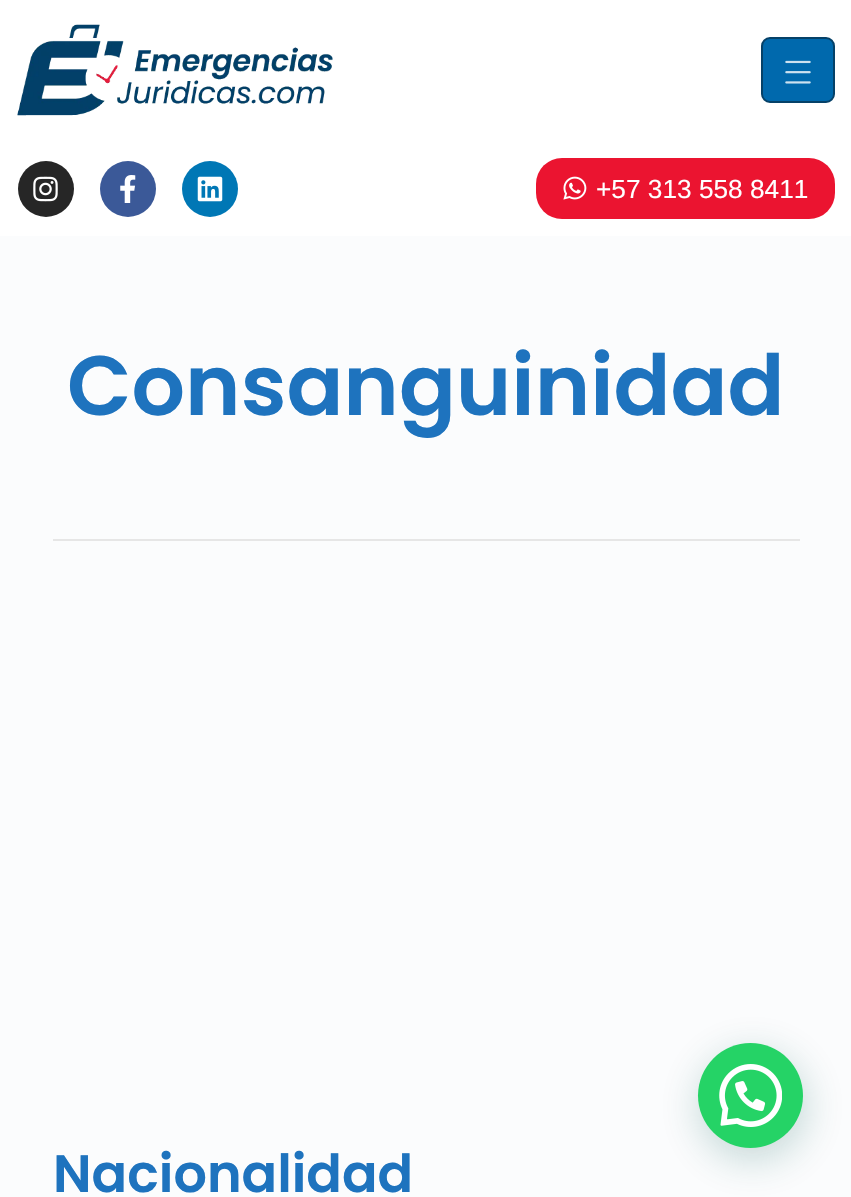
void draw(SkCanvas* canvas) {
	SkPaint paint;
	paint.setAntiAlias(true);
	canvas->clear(0xfffbfcfd);
	paint.setColor(0xffffffff);
	canvas->drawRect(SkRect::MakeXYWH(0, 0, 851, 236), paint);
	canvas->drawImageRect(SkImages::DeferredFromEncodedData(SkData::MakeFromFileName("img1.png")), SkRect::MakeXYWH(17, 24, 316, 92), SkSamplingOptions());
	paint.setColor(0xff0069ad);
	canvas->drawRoundRect(SkRect::MakeXYWH(762, 38, 72, 64), 8, 8, paint);
	paint.setStroke(true);
	paint.setStrokeWidth(2);
	paint.setColor(0xff054168);
	canvas->drawRoundRect(SkRect::MakeXYWH(762, 38, 72, 64), 8, 8, paint);
	canvas->drawImageRect(SkImages::DeferredFromEncodedData(SkData::MakeFromFileName("img2.png")), SkRect::MakeXYWH(785, 60, 26, 24), SkSamplingOptions());
	paint.setStroke(false);
	paint.setColor(0xff262626);
	canvas->drawCircle(46, 189, 28, paint);
	canvas->drawImageRect(SkImages::DeferredFromEncodedData(SkData::MakeFromFileName("img3.png")), SkRect::MakeXYWH(33, 176, 25, 26), SkSamplingOptions());
	paint.setColor(0xff3b5998);
	canvas->drawCircle(128, 189, 28, paint);
	canvas->drawImageRect(SkImages::DeferredFromEncodedData(SkData::MakeFromFileName("img4.png")), SkRect::MakeXYWH(120, 175, 16, 28), SkSamplingOptions());
	paint.setColor(0xff0077b5);
	canvas->drawCircle(210, 189, 28, paint);
	canvas->drawImageRect(SkImages::DeferredFromEncodedData(SkData::MakeFromFileName("img5.png")), SkRect::MakeXYWH(197, 176, 26, 26), SkSamplingOptions());
	paint.setColor(0xffeb1430);
	canvas->drawRoundRect(SkRect::MakeXYWH(536, 158, 299, 61), 26, 26, paint);
	canvas->drawImageRect(SkImages::DeferredFromEncodedData(SkData::MakeFromFileName("img6.png")), SkRect::MakeXYWH(563, 176, 24, 24), SkSamplingOptions());
	SkFont f1(fontMgr->matchFamilyStyle("Liberation Sans", SkFontStyle::Normal()), 26.25);
	f1.setSubpixel(true);
	paint.setColor(0xffffffff);
	canvas->drawString("+57 313 558 8411", 596, 198, f1, paint);
	paint.setColor(0xffe6e6e6);
	canvas->drawRect(SkRect::MakeXYWH(53, 539, 747, 2), paint);
	SkFont f2(fontMgr->matchFamilyStyle("Poppins", SkFontStyle(600, SkFontStyle::kNormal_Width, SkFontStyle::kUpright_Slant)), 84);
	f2.setSubpixel(true);
	paint.setColor(0xff1e73be);
	canvas->drawString("Consanguinidad", 67, 415, f2, paint);
	SkFont f3(fontMgr->matchFamilyStyle("Poppins", SkFontStyle(600, SkFontStyle::kNormal_Width, SkFontStyle::kUpright_Slant)), 52.5);
	f3.setSubpixel(true);
	canvas->drawString("Nacionalidad", 53, 1192, f3, paint);
	paint.setColor(0x3d075e54);
	paint.setMaskFilter(SkMaskFilter::MakeBlur(kNormal_SkBlurStyle, 21));
	canvas->drawRoundRect(SkRect::MakeXYWH(700, 1054, 105, 105), 52.5, 52.5, paint);
	paint.setMaskFilter(nullptr);
	paint.setColor(0xff25d366);
	canvas->drawCircle(750.5, 1095.5, 52.5, paint);
	canvas->drawImageRect(SkImages::DeferredFromEncodedData(SkData::MakeFromFileName("img7.png")), SkRect::MakeXYWH(719, 1064, 63, 63), SkSamplingOptions());
}
